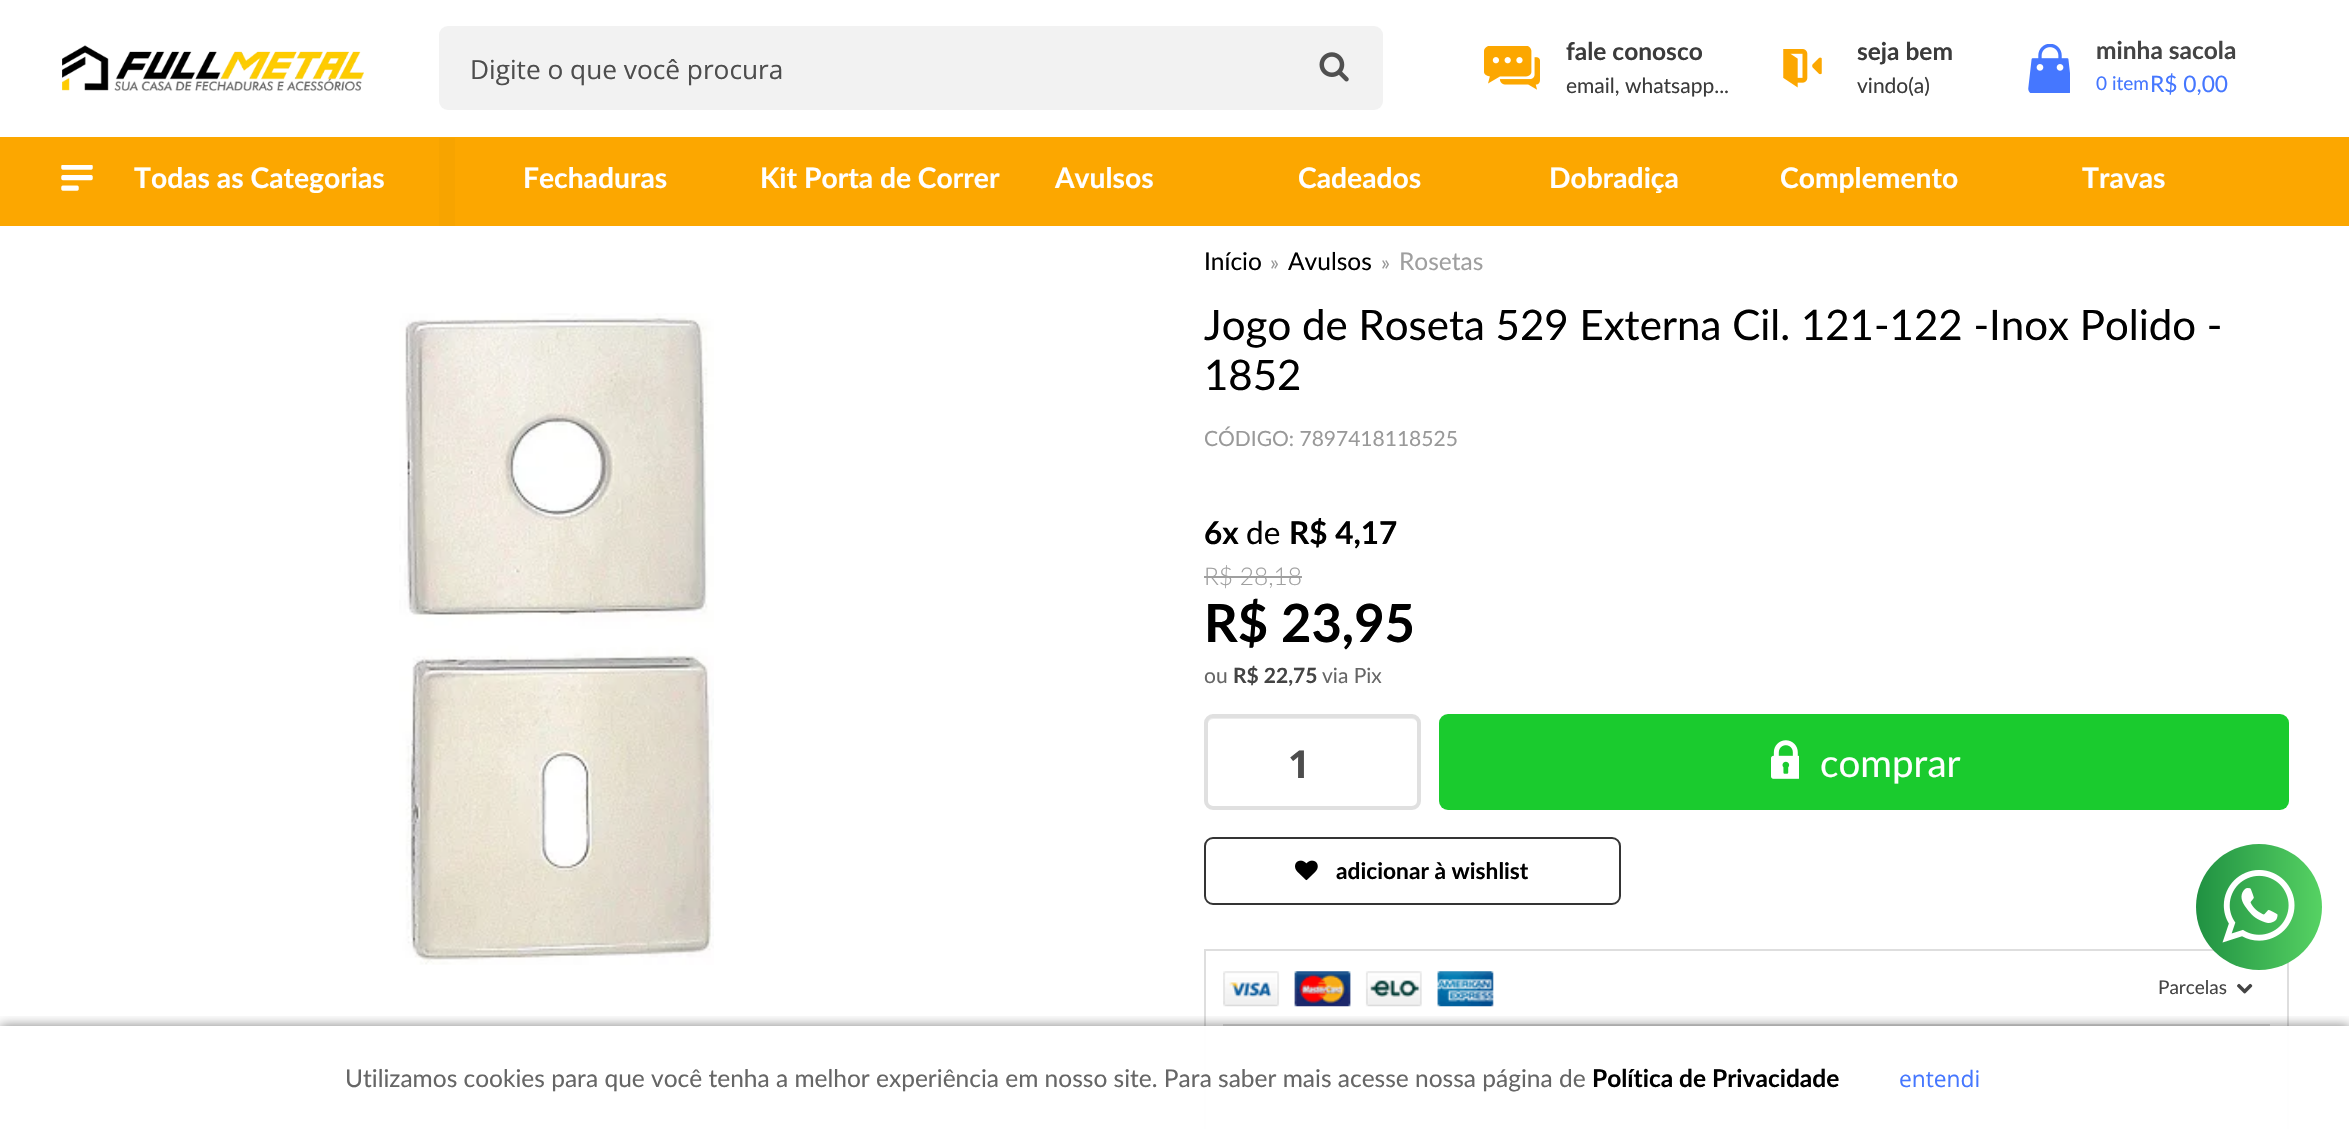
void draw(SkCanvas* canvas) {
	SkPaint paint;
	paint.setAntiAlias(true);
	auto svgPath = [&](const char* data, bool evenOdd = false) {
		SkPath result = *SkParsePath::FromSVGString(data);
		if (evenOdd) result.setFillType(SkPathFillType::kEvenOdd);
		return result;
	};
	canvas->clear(0xffffffff);
	canvas->drawImageRect(SkImages::DeferredFromEncodedData(SkData::MakeFromFileName("img1.png")), SkRect::MakeXYWH(62, 45, 302, 46), SkSamplingOptions());
	paint.setColor(0xfff2f2f2);
	canvas->drawRoundRect(SkRect::MakeXYWH(439, 26, 944, 84), 9, 9, paint);
	SkFont f1(fontMgr->matchFamilyStyle("Open Sans", SkFontStyle::Normal()), 26.25);
	f1.setSubpixel(true);
	paint.setColor(0xff4d4d4d);
	canvas->drawString("Digite o que você procura", 470, 79, f1, paint);
	canvas->drawImageRect(SkImages::DeferredFromEncodedData(SkData::MakeFromFileName("img2.png")), SkRect::MakeXYWH(1319, 52, 30, 30), SkSamplingOptions());
	canvas->drawImageRect(SkImages::DeferredFromEncodedData(SkData::MakeFromFileName("img3.png")), SkRect::MakeXYWH(1484, 46, 56, 44), SkSamplingOptions());
	SkFont f2(fontMgr->matchFamilyStyle("Lato", SkFontStyle::Bold()), 24.5);
	f2.setSubpixel(true);
	paint.setColor(0xff3b3b3b);
	canvas->drawString("fale conosco", 1566, 60, f2, paint);
	SkFont f3(fontMgr->matchFamilyStyle("Lato", SkFontStyle::Normal()), 21);
	f3.setSubpixel(true);
	canvas->drawString("email, whatsapp...", 1566, 93, f3, paint);
	canvas->drawImageRect(SkImages::DeferredFromEncodedData(SkData::MakeFromFileName("img4.png")), SkRect::MakeXYWH(1783, 49, 39, 39), SkSamplingOptions());
	canvas->drawString("seja bem", 1857, 60, f2, paint);
	canvas->drawString("vindo(a)", 1857, 93, f3, paint);
	canvas->drawImageRect(SkImages::DeferredFromEncodedData(SkData::MakeFromFileName("img5.png")), SkRect::MakeXYWH(2028, 44, 42, 49), SkSamplingOptions());
	paint.setColor(0xff444444);
	canvas->drawString("minha sacola", 2096, 59, f2, paint);
	SkFont f4(fontMgr->matchFamilyStyle("Lato", SkFontStyle::Normal()), 19);
	f4.setSubpixel(true);
	paint.setColor(0xff4577ff);
	canvas->drawString("0 item", 2096, 90, f4, paint);
	SkFont f5(fontMgr->matchFamilyStyle("Lato", SkFontStyle::Normal()), 22.75);
	f5.setSubpixel(true);
	canvas->drawString("R$ 0,00", 2150, 92, f5, paint);
	paint.setColor(0xfffca700);
	canvas->drawRect(SkRect::MakeXYWH(0, 137, 2349, 89), paint);
	canvas->drawImageRect(SkImages::DeferredFromEncodedData(SkData::MakeFromFileName("img6.png")), SkRect::MakeXYWH(61, 165, 32, 26), SkSamplingOptions());
	SkFont f6(fontMgr->matchFamilyStyle("Lato", SkFontStyle::Bold()), 28.25);
	f6.setSubpixel(true);
	paint.setColor(0xffffffff);
	canvas->drawString("Todas as Categorias", 134, 188, f6, paint);
	paint.setColor(0xfff7a400);
	canvas->drawRect(SkRect::MakeXYWH(439, 138, 16, 88), paint);
	paint.setColor(0xffffffff);
	canvas->drawString("Fechaduras", 523, 188, f6, paint);
	canvas->drawString("Kit Porta de Correr", 760, 188, f6, paint);
	canvas->drawString("Avulsos", 1055, 188, f6, paint);
	canvas->drawString("Cadeados", 1298, 188, f6, paint);
	canvas->drawString("Dobradiça", 1549, 188, f6, paint);
	canvas->drawString("Complemento", 1780, 188, f6, paint);
	canvas->drawString("Travas", 2082, 188, f6, paint);
	canvas->drawImageRect(SkImages::DeferredFromEncodedData(SkData::MakeFromFileName("img7.png")), SkRect::MakeXYWH(399, 313, 315, 652), SkSamplingOptions());
	SkFont f7(fontMgr->matchFamilyStyle("Lato", SkFontStyle::Normal()), 24.5);
	f7.setSubpixel(true);
	paint.setColor(0xff000000);
	canvas->drawString("Início", 1204, 270, f7, paint);
	paint.setColor(0xff999999);
	canvas->drawString("»", 1270, 270, f3, paint);
	paint.setColor(0xff000000);
	canvas->drawString("Avulsos", 1288, 270, f7, paint);
	paint.setColor(0xff999999);
	canvas->drawString("»", 1381, 270, f3, paint);
	paint.setColor(0xff9f9f9f);
	canvas->drawString("Rosetas", 1399, 270, f7, paint);
	SkFont f8(fontMgr->matchFamilyStyle("Lato", SkFontStyle::Normal()), 42);
	f8.setSubpixel(true);
	paint.setColor(0xff000000);
	canvas->drawString("Jogo de Roseta 529 Externa Cil. 121-122 -Inox Polido -", 1204, 340, f8, paint);
	canvas->drawString("1852", 1204, 390, f8, paint);
	paint.setColor(0xff999999);
	canvas->drawString("CÓDIGO: 7897418118525", 1204, 446, f3, paint);
	SkFont f9(fontMgr->matchFamilyStyle("Lato", SkFontStyle::Bold()), 31.5);
	f9.setSubpixel(true);
	paint.setColor(0xff000000);
	canvas->drawString("6x", 1204, 544, f9, paint);
	SkFont f10(fontMgr->matchFamilyStyle("Lato", SkFontStyle::Normal()), 31.5);
	f10.setSubpixel(true);
	canvas->drawString("de", 1246, 544, f10, paint);
	canvas->drawString("R$ 4,17", 1289, 544, f9, paint);
	SkFont f11(fontMgr->matchFamilyStyle("Lato", SkFontStyle(300, SkFontStyle::kNormal_Width, SkFontStyle::kUpright_Slant)), 24.5);
	f11.setSubpixel(true);
	paint.setColor(0xff9f9f9f);
	canvas->drawString("R$ 28,18", 1204, 585, f11, paint);
	canvas->drawRect(SkRect::MakeXYWH(1204, 576, 98, 2), paint);
	SkFont f12(fontMgr->matchFamilyStyle("Lato", SkFontStyle::Bold()), 52.5);
	f12.setSubpixel(true);
	paint.setColor(0xff000000);
	canvas->drawString("R$ 23,95", 1204, 642, f12, paint);
	paint.setColor(0xff666666);
	canvas->drawString("ou", 1204, 683, f3, paint);
	SkFont f13(fontMgr->matchFamilyStyle("Lato", SkFontStyle::Bold()), 21);
	f13.setSubpixel(true);
	paint.setColor(0xff444444);
	canvas->drawString("R$ 22,75", 1233, 683, f13, paint);
	paint.setColor(0xff666666);
	canvas->drawString("via Pix", 1322, 683, f3, paint);
	paint.setColor(0xffececec);
	canvas->drawPath(svgPath("M1213 719H1412C1415 719 1418 722 1418 724V723C1418 720 1416 718 1413 718H1213C1210 718 1208 720 1208 723V724C1208 722 1210 719 1213 719Z"), paint);
	paint.setStroke(true);
	paint.setStrokeWidth(4);
	paint.setColor(0xffe0e0e0);
	canvas->drawRoundRect(SkRect::MakeXYWH(1206, 716, 213, 92), 7, 7, paint);
	SkFont f14(fontMgr->matchFamilyStyle("Open Sans", SkFontStyle::Bold()), 38.5);
	f14.setSubpixel(true);
	paint.setStroke(false);
	paint.setColor(0xff4d4d4d);
	canvas->drawString("1", 1288, 778, f14, paint);
	paint.setColor(0xff1acb2e);
	canvas->drawRoundRect(SkRect::MakeXYWH(1439, 714, 850, 96), 9, 9, paint);
	canvas->drawImageRect(SkImages::DeferredFromEncodedData(SkData::MakeFromFileName("img8.png")), SkRect::MakeXYWH(1771, 740, 28, 39), SkSamplingOptions());
	SkFont f15(fontMgr->matchFamilyStyle("Lato", SkFontStyle::Normal()), 38.5);
	f15.setSubpixel(true);
	paint.setColor(0xffffffff);
	canvas->drawString("comprar", 1820, 777, f15, paint);
	paint.setStroke(true);
	paint.setStrokeWidth(2);
	paint.setColor(0xff343434);
	canvas->drawRoundRect(SkRect::MakeXYWH(1205, 838, 415, 66), 8, 8, paint);
	canvas->drawImageRect(SkImages::DeferredFromEncodedData(SkData::MakeFromFileName("img9.png")), SkRect::MakeXYWH(1295, 860, 23, 21), SkSamplingOptions());
	SkFont f16(fontMgr->matchFamilyStyle("Lato", SkFontStyle::Bold()), 22.75);
	f16.setSubpixel(true);
	paint.setStroke(false);
	paint.setColor(0xff000000);
	canvas->drawString("adicionar à wishlist", 1336, 879, f16, paint);
	paint.setStroke(true);
	paint.setColor(0xffdedede);
	canvas->drawRect(SkRect::MakeXYWH(1205, 950, 1083, 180), paint);
	canvas->drawImageRect(SkImages::DeferredFromEncodedData(SkData::MakeFromFileName("img10.png")), SkRect::MakeXYWH(1223, 971, 271, 36), SkSamplingOptions());
	paint.setStroke(false);
	paint.setColor(0xff444444);
	canvas->drawString("Parcelas", 2158, 994, f4, paint);
	canvas->drawImageRect(SkImages::DeferredFromEncodedData(SkData::MakeFromFileName("img11.png")), SkRect::MakeXYWH(2237, 983, 16, 11), SkSamplingOptions());
	paint.setColor(0xffdedede);
	canvas->drawRect(SkRect::MakeXYWH(1223, 1024, 1047, 2), paint);
	{
		const SkColor colors[] = {0xff209142, 0xff56d263};
		const float stops[] = {0, 1};
		const SkPoint ends[] = {{2196, 907}, {2322, 907}};
		paint.setShader(SkGradientShader::MakeLinear(ends, colors, stops, 2, SkTileMode::kClamp));
		paint.setAlpha(255);
	}
	canvas->drawCircle(2259, 907, 63, paint);
	canvas->drawImageRect(SkImages::DeferredFromEncodedData(SkData::MakeFromFileName("img12.png")), SkRect::MakeXYWH(2222, 870, 73, 73), SkSamplingOptions());
	canvas->save();
	canvas->clipRect(SkRect::MakeXYWH(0, 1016, 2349, 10));
	paint.setShader(nullptr);
	paint.setColor(0x80000000);
	paint.setMaskFilter(SkMaskFilter::MakeBlur(kNormal_SkBlurStyle, 6));
	canvas->drawRect(SkRect::MakeXYWH(0, 1026, 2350, 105), paint);
	paint.setMaskFilter(nullptr);
	canvas->restore();
	paint.setColor(0xf2ffffff);
	canvas->drawRect(SkRect::MakeXYWH(1204, 1026, 1085, 103), paint);
	paint.setColor(0xff666666);
	canvas->drawString("Utilizamos cookies para que você tenha a melhor experiência em nosso site. Para saber mais acesse nossa página de", 345, 1087, f7, paint);
	paint.setColor(0xff000000);
	canvas->drawString("Política de Privacidade", 1592, 1087, f2, paint);
	SkFont f17(fontMgr->matchFamilyStyle("Open Sans", SkFontStyle::Normal()), 22.75);
	f17.setSubpixel(true);
	paint.setColor(0xff4577ff);
	canvas->drawString("entendi", 1899, 1087, f17, paint);
}
